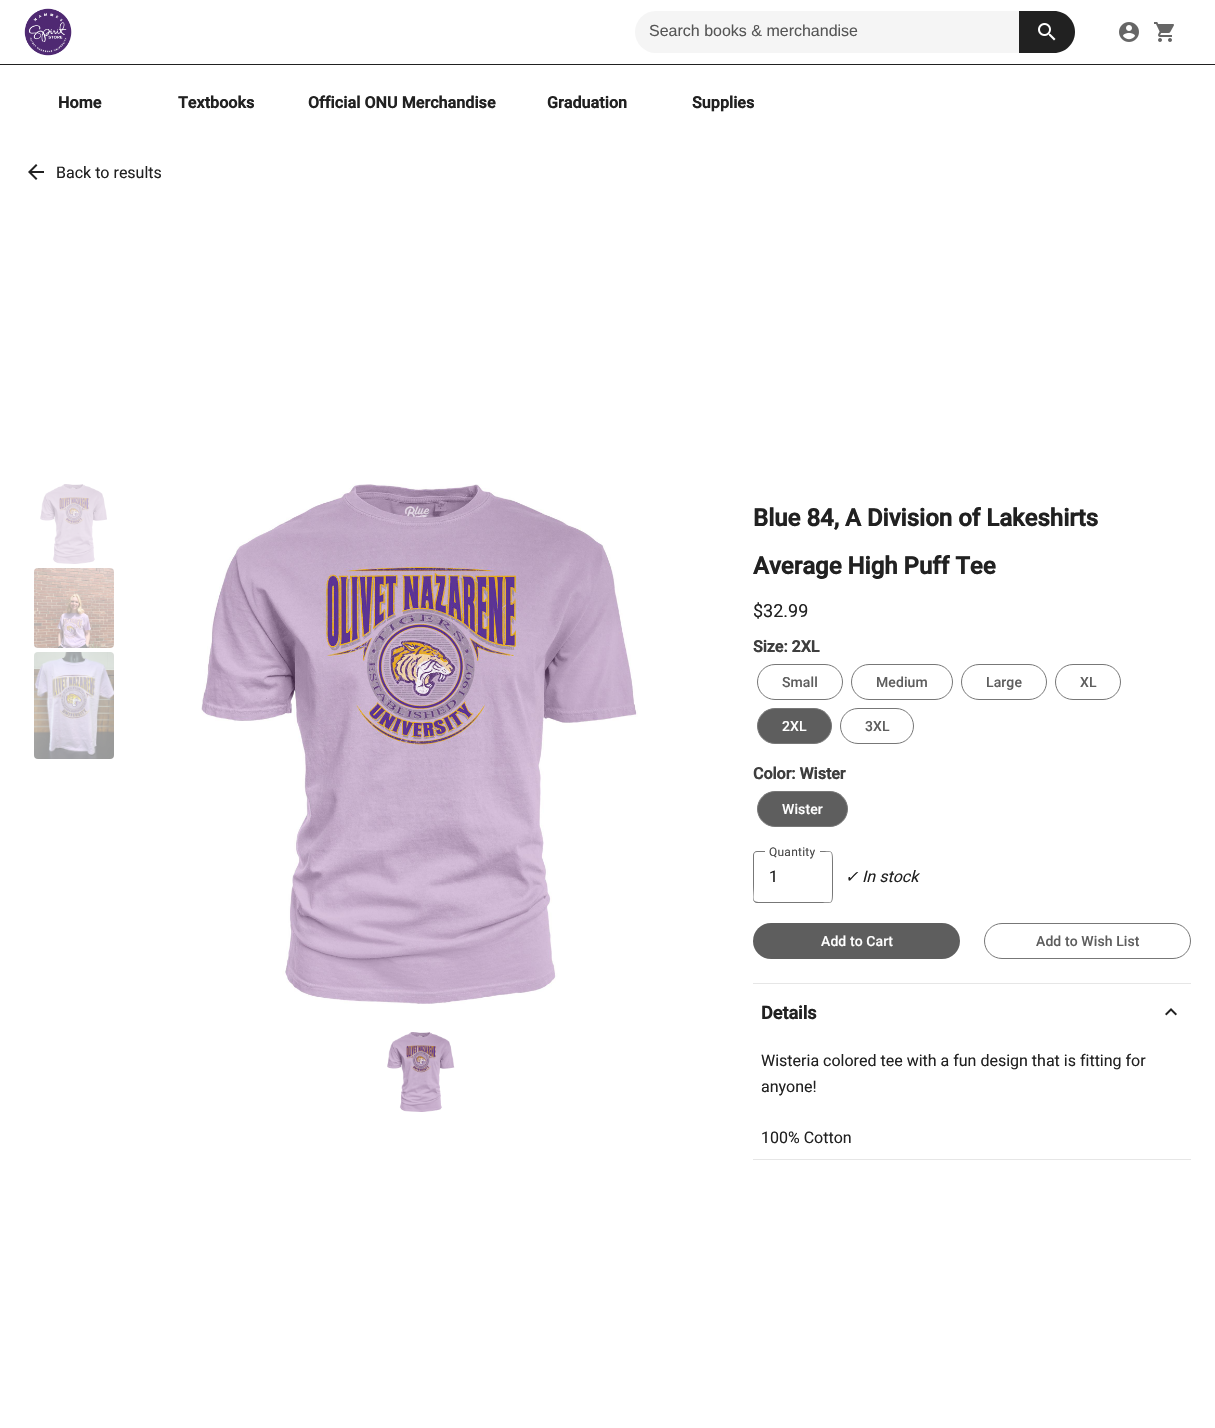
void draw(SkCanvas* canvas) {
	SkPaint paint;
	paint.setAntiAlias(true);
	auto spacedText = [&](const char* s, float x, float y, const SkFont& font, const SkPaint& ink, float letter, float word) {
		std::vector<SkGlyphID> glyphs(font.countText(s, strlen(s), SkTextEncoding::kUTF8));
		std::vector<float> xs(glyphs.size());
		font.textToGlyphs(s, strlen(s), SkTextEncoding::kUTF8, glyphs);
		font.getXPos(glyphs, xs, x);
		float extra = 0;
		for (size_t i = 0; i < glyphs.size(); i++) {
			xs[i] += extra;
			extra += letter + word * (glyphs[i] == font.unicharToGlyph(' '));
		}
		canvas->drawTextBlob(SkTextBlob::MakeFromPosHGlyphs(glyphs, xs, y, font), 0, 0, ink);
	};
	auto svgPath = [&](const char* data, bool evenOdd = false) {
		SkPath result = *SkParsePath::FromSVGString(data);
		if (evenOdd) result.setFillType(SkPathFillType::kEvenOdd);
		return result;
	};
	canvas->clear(0xffffffff);
	canvas->drawImageRect(SkImages::DeferredFromEncodedData(SkData::MakeFromFileName("img1.png")), SkRect::MakeXYWH(24, 8, 48, 48), SkSamplingOptions());
	paint.setColor(0xfff5f5f5);
	canvas->drawRoundRect(SkRect::MakeXYWH(635, 11, 440, 42), 21, 21, paint);
	SkFont f1(fontMgr->matchFamilyStyle("Liberation Sans", SkFontStyle::Normal()), 16);
	f1.setSubpixel(true);
	paint.setColor(0xff565656);
	canvas->drawString("Search books & merchandise", 649, 36, f1, paint);
	paint.setColor(0xff212121);
	canvas->drawPath(svgPath("M1019 11H1054C1065.5 11 1075 20.5 1075 32C1075 43.5 1065.5 53 1054 53H1019Z"), paint);
	canvas->drawImageRect(SkImages::DeferredFromEncodedData(SkData::MakeFromFileName("img2.png")), SkRect::MakeXYWH(1038, 23, 18, 18), SkSamplingOptions());
	canvas->drawImageRect(SkImages::DeferredFromEncodedData(SkData::MakeFromFileName("img3.png")), SkRect::MakeXYWH(1119, 22, 20, 20), SkSamplingOptions());
	canvas->drawImageRect(SkImages::DeferredFromEncodedData(SkData::MakeFromFileName("img4.png")), SkRect::MakeXYWH(1154, 22, 20, 20), SkSamplingOptions());
	canvas->drawRect(SkRect::MakeXYWH(0, 64, 1215, 1), paint);
	SkFont f2(fontMgr->matchFamilyStyle("Roboto", SkFontStyle::Bold()), 16);
	f2.setSubpixel(true);
	spacedText("Home", 58, 108, f2, paint, 0.1, 0);
	spacedText("Textbooks", 178, 108, f2, paint, 0.1, 0);
	spacedText("Official ONU Merchandise", 308, 108, f2, paint, 0.1, 0);
	spacedText("Graduation", 547, 108, f2, paint, 0.1, 0);
	spacedText("Supplies", 692, 108, f2, paint, 0.1, 0);
	canvas->drawImageRect(SkImages::DeferredFromEncodedData(SkData::MakeFromFileName("img5.png")), SkRect::MakeXYWH(28, 164, 16, 16), SkSamplingOptions());
	SkFont f3(fontMgr->matchFamilyStyle("Roboto", SkFontStyle::Normal()), 16);
	f3.setSubpixel(true);
	canvas->drawString("Back to results", 56, 178, f3, paint);
	canvas->drawImageRect(SkImages::DeferredFromEncodedData(SkData::MakeFromFileName("img6.png")), SkRect::MakeXYWH(40, 484, 67, 80), SkSamplingOptions());
	canvas->drawImageRect(SkImages::DeferredFromEncodedData(SkData::MakeFromFileName("img7.png")), SkRect::MakeXYWH(34, 568, 80, 80), SkSamplingOptions());
	canvas->drawImageRect(SkImages::DeferredFromEncodedData(SkData::MakeFromFileName("img8.png")), SkRect::MakeXYWH(34, 652, 80, 107), SkSamplingOptions());
	canvas->drawImageRect(SkImages::DeferredFromEncodedData(SkData::MakeFromFileName("img9.png")), SkRect::MakeXYWH(201, 484, 437, 520), SkSamplingOptions());
	canvas->drawImageRect(SkImages::DeferredFromEncodedData(SkData::MakeFromFileName("img10.png")), SkRect::MakeXYWH(387, 1032, 68, 80), SkSamplingOptions());
	SkFont f4(fontMgr->matchFamilyStyle("Roboto", SkFontStyle::Bold()), 24);
	f4.setSubpixel(true);
	canvas->drawString("Blue 84, A Division of Lakeshirts", 753, 526, f4, paint);
	canvas->drawString("Average High Puff Tee", 753, 574, f4, paint);
	SkFont f5(fontMgr->matchFamilyStyle("Roboto", SkFontStyle::Normal()), 18);
	f5.setSubpixel(true);
	canvas->drawString("$32.99", 753, 617, f5, paint);
	paint.setColor(0xff3e3e3e);
	canvas->drawString("Size: 2XL", 753, 652, f2, paint);
	paint.setStroke(true);
	paint.setStrokeWidth(1);
	paint.setColor(0xff777777);
	canvas->drawRoundRect(SkRect::MakeXYWH(757.5, 664.5, 85, 35), 17.5, 17.5, paint);
	SkFont f6(fontMgr->matchFamilyStyle("Roboto", SkFontStyle(500, SkFontStyle::kNormal_Width, SkFontStyle::kUpright_Slant)), 14);
	f6.setSubpixel(true);
	paint.setStroke(false);
	paint.setColor(0xff5e5e5e);
	spacedText("Small", 782, 687, f6, paint, 0.1, 0);
	paint.setStroke(true);
	paint.setColor(0xff777777);
	canvas->drawRoundRect(SkRect::MakeXYWH(851.5, 664.5, 101, 35), 17.5, 17.5, paint);
	paint.setStroke(false);
	paint.setColor(0xff5e5e5e);
	spacedText("Medium", 876, 687, f6, paint, 0.1, 0);
	paint.setStroke(true);
	paint.setColor(0xff777777);
	canvas->drawRoundRect(SkRect::MakeXYWH(961.5, 664.5, 85, 35), 17.5, 17.5, paint);
	paint.setStroke(false);
	paint.setColor(0xff5e5e5e);
	spacedText("Large", 986, 687, f6, paint, 0.1, 0);
	paint.setStroke(true);
	paint.setColor(0xff777777);
	canvas->drawRoundRect(SkRect::MakeXYWH(1055.5, 664.5, 65, 35), 17.5, 17.5, paint);
	paint.setStroke(false);
	paint.setColor(0xff5e5e5e);
	spacedText("XL", 1080, 687, f6, paint, 0.1, 0);
	canvas->drawRoundRect(SkRect::MakeXYWH(757.5, 708.5, 74, 35), 17.5, 17.5, paint);
	paint.setStroke(true);
	paint.setColor(0xff777777);
	canvas->drawRoundRect(SkRect::MakeXYWH(757.5, 708.5, 74, 35), 17.5, 17.5, paint);
	paint.setStroke(false);
	paint.setColor(0xffffffff);
	spacedText("2XL", 782, 731, f6, paint, 0.1, 0);
	paint.setStroke(true);
	paint.setColor(0xff777777);
	canvas->drawRoundRect(SkRect::MakeXYWH(840.5, 708.5, 73, 35), 17.5, 17.5, paint);
	paint.setStroke(false);
	paint.setColor(0xff5e5e5e);
	spacedText("3XL", 865, 731, f6, paint, 0.1, 0);
	paint.setColor(0xff3e3e3e);
	canvas->drawString("Color: Wister", 753, 779, f2, paint);
	paint.setColor(0xff5e5e5e);
	canvas->drawRoundRect(SkRect::MakeXYWH(757.5, 791.5, 90, 35), 17.5, 17.5, paint);
	paint.setStroke(true);
	paint.setColor(0xff777777);
	canvas->drawRoundRect(SkRect::MakeXYWH(757.5, 791.5, 90, 35), 17.5, 17.5, paint);
	paint.setStroke(false);
	paint.setColor(0xffffffff);
	spacedText("Wister", 782, 814, f6, paint, 0.1, 0);
	paint.setColor(0xff777777);
	canvas->drawPath(svgPath("M757 851H765V903H757C755 903 753 901 753 899V855C753 853 755 851 757 851ZM757 852H765V902C750 902 754 902 754 884V855C754 853 755 852 757 852Z", true), paint);
	canvas->drawPath(svgPath("M820 903H764L765 902H820Z"), paint);
	SkFont f7(fontMgr->matchFamilyStyle("Roboto", SkFontStyle::Normal()), 12);
	f7.setSubpixel(true);
	paint.setColor(0xff474747);
	spacedText("Quantity", 769, 856, f7, paint, 0.25, 0);
	paint.setColor(0xff777777);
	canvas->drawPath(svgPath("M820 851C832 851 833 849 833 862V892C833 905 832 903 820 903ZM820 852C832 852 832 849 832 862V892C832 905 832 902 820 902Z", true), paint);
	paint.setColor(0xff1b1b1b);
	canvas->drawString("1", 769, 882, f3, paint);
	SkFont f8(fontMgr->matchFamilyStyle("DejaVu Sans", SkFontStyle::Italic()), 16);
	f8.setSubpixel(true);
	paint.setColor(0xff212121);
	canvas->drawString("✓", 845, 882, f8, paint);
	SkFont f9(fontMgr->matchFamilyStyle("Roboto", SkFontStyle::Italic()), 16);
	f9.setSubpixel(true);
	canvas->drawString("In stock", 862, 882, f9, paint);
	paint.setColor(0xff5e5e5e);
	canvas->drawRoundRect(SkRect::MakeXYWH(753, 923, 207, 36), 18, 18, paint);
	paint.setColor(0xffffffff);
	spacedText("Add to Cart", 821, 946, f6, paint, 0.1, 0);
	paint.setStroke(true);
	paint.setColor(0xff777777);
	canvas->drawRoundRect(SkRect::MakeXYWH(984.5, 923.5, 206, 35), 17.5, 17.5, paint);
	paint.setStroke(false);
	paint.setColor(0xff5e5e5e);
	spacedText("Add to Wish List", 1036, 946, f6, paint, 0.1, 0);
	paint.setColor(0xffe6e6e6);
	canvas->drawRect(SkRect::MakeXYWH(753, 983, 438, 1), paint);
	canvas->drawRect(SkRect::MakeXYWH(753, 1159, 438, 1), paint);
	SkFont f10(fontMgr->matchFamilyStyle("Roboto", SkFontStyle::Bold()), 18);
	f10.setSubpixel(true);
	paint.setColor(0xff212121);
	canvas->drawString("Details", 761, 1019, f10, paint);
	canvas->drawImageRect(SkImages::DeferredFromEncodedData(SkData::MakeFromFileName("img11.png")), SkRect::MakeXYWH(1165, 1008, 12, 8), SkSamplingOptions());
	canvas->drawString("Wisteria colored tee with a fun design that is fitting for", 761, 1066, f3, paint);
	canvas->drawString("anyone!", 761, 1092, f3, paint);
	canvas->drawString("100% Cotton", 761, 1143, f3, paint);
}
